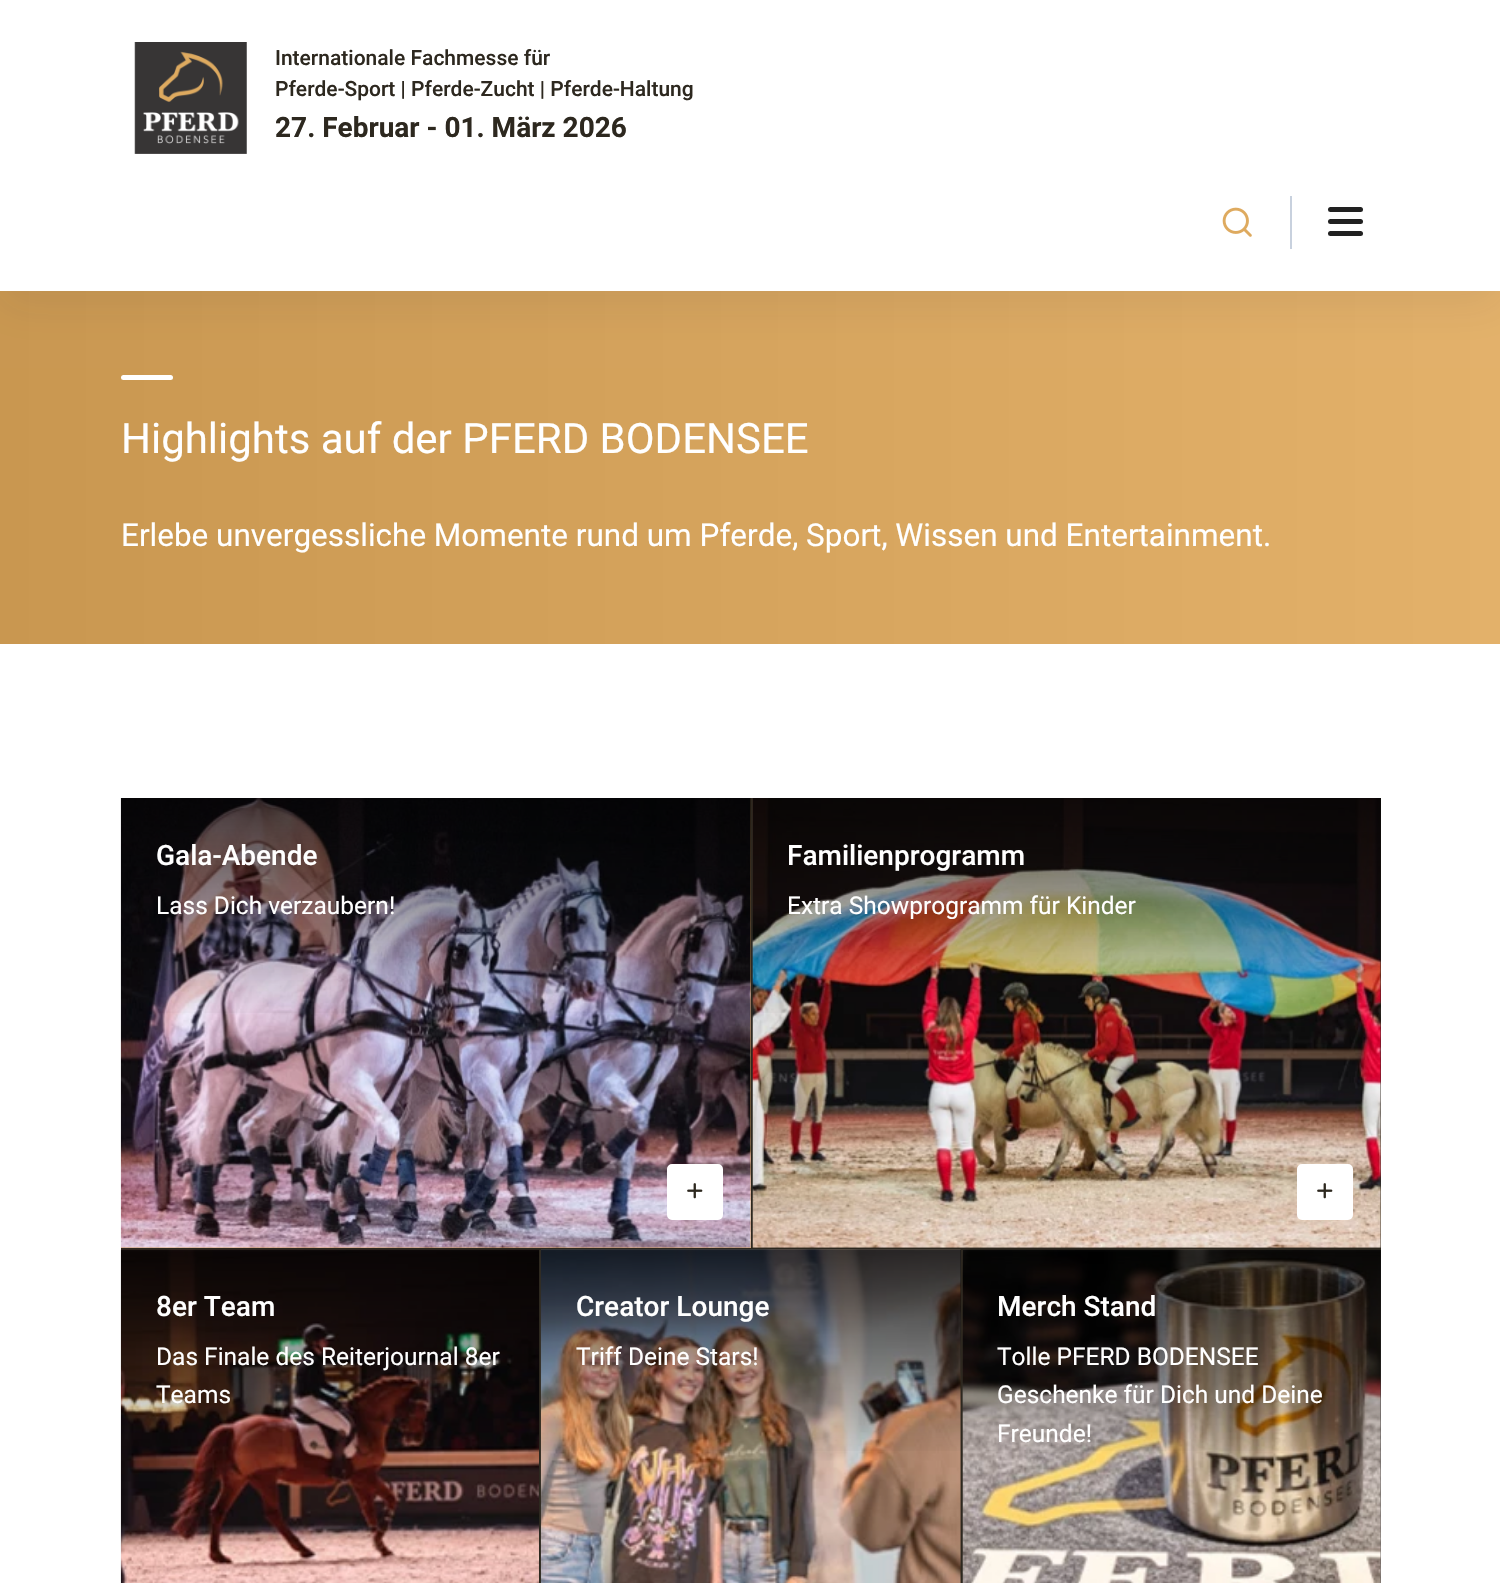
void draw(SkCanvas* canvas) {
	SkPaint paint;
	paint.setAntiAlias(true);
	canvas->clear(0xffffffff);
	{
		const SkColor colors[] = {0xffc99750, 0xffe9b770};
		const float stops[] = {0, 1};
		const SkPoint ends[] = {{0, 467}, {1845, 467}};
		paint.setShader(SkGradientShader::MakeLinear(ends, colors, stops, 2, SkTileMode::kClamp));
		paint.setAlpha(255);
	}
	canvas->drawRect(SkRect::MakeXYWH(0, 291, 1500, 353), paint);
	paint.setShader(nullptr);
	paint.setColor(0x1428293d);
	paint.setMaskFilter(SkMaskFilter::MakeBlur(kNormal_SkBlurStyle, 21));
	canvas->drawRect(SkRect::MakeXYWH(0, 14, 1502, 291), paint);
	paint.setMaskFilter(nullptr);
	paint.setColor(0xffffffff);
	canvas->drawRect(SkRect::MakeXYWH(0, 0, 1500, 291), paint);
	canvas->drawImageRect(SkImages::DeferredFromEncodedData(SkData::MakeFromFileName("img1.png")), SkRect::MakeXYWH(134, 42, 113, 112), SkSamplingOptions());
	SkFont f1(fontMgr->matchFamilyStyle("Roboto", SkFontStyle(500, SkFontStyle::kNormal_Width, SkFontStyle::kUpright_Slant)), 21);
	f1.setSubpixel(true);
	paint.setColor(0xff2d281f);
	canvas->drawString("Internationale Fachmesse für", 275, 65, f1, paint);
	canvas->drawString("Pferde-Sport | Pferde-Zucht | Pferde-Haltung", 275, 96, f1, paint);
	SkFont f2(fontMgr->matchFamilyStyle("Roboto", SkFontStyle::Bold()), 28);
	f2.setSubpixel(true);
	canvas->drawString("27. Februar - 01. März 2026", 275, 137, f2, paint);
	canvas->drawImageRect(SkImages::DeferredFromEncodedData(SkData::MakeFromFileName("img2.png")), SkRect::MakeXYWH(1222, 207, 30, 30), SkSamplingOptions());
	paint.setColor(0xffc8d1de);
	canvas->drawRect(SkRect::MakeXYWH(1290, 196, 2, 53), paint);
	paint.setColor(0xff212121);
	canvas->drawRoundRect(SkRect::MakeXYWH(1328, 207, 35, 5), 2.5, 2.5, paint);
	canvas->drawRoundRect(SkRect::MakeXYWH(1328, 219, 35, 5), 2.5, 2.5, paint);
	canvas->drawRoundRect(SkRect::MakeXYWH(1328, 231, 35, 5), 2.5, 2.5, paint);
	paint.setColor(0xffffffff);
	canvas->drawRoundRect(SkRect::MakeXYWH(121, 375, 52, 5), 2.5, 2.5, paint);
	SkFont f3(fontMgr->matchFamilyStyle("Roboto", SkFontStyle::Normal()), 42);
	f3.setSubpixel(true);
	canvas->drawString("Highlights auf der PFERD BODENSEE", 121, 453, f3, paint);
	SkFont f4(fontMgr->matchFamilyStyle("Roboto", SkFontStyle::Normal()), 31.5);
	f4.setSubpixel(true);
	canvas->drawString("Erlebe unvergessliche Momente rund um Pferde, Sport, Wissen und Entertainment.", 121, 546, f4, paint);
	{
		const SkColor colors[] = {0xffc99750, 0xffe9b770};
		const float stops[] = {0, 1};
		const SkPoint ends[] = {{121, 1023}, {895, 1023}};
		paint.setShader(SkGradientShader::MakeLinear(ends, colors, stops, 2, SkTileMode::kClamp));
		paint.setAlpha(255);
	}
	canvas->drawRect(SkRect::MakeXYWH(121, 798, 630, 450), paint);
	canvas->drawImageRect(SkImages::DeferredFromEncodedData(SkData::MakeFromFileName("img3.png")), SkRect::MakeXYWH(120, 798, 631, 450), SkSamplingOptions());
	{
		const SkColor colors[] = {0x00000000, 0xb3000000};
		const float stops[] = {0.01, 1};
		const SkPoint ends[] = {{436, 1022}, {436, 798}};
		paint.setShader(SkGradientShader::MakeLinear(ends, colors, stops, 2, SkTileMode::kClamp));
		paint.setAlpha(255);
	}
	canvas->drawRect(SkRect::MakeXYWH(121, 798, 630, 215), paint);
	SkFont f5(fontMgr->matchFamilyStyle("Roboto", SkFontStyle(500, SkFontStyle::kNormal_Width, SkFontStyle::kUpright_Slant)), 28);
	f5.setSubpixel(true);
	paint.setShader(nullptr);
	paint.setColor(0xffffffff);
	canvas->drawString("Gala-Abende", 156, 865, f5, paint);
	SkFont f6(fontMgr->matchFamilyStyle("Roboto", SkFontStyle::Normal()), 24.5);
	f6.setSubpixel(true);
	canvas->drawString("Lass Dich verzaubern!", 156, 914, f6, paint);
	canvas->drawRoundRect(SkRect::MakeXYWH(669, 1166, 52, 52), 3, 3, paint);
	paint.setStroke(true);
	paint.setStrokeWidth(4);
	canvas->drawRoundRect(SkRect::MakeXYWH(669, 1166, 52, 52), 3, 3, paint);
	canvas->drawImageRect(SkImages::DeferredFromEncodedData(SkData::MakeFromFileName("img4.png")), SkRect::MakeXYWH(687, 1183, 16, 16), SkSamplingOptions());
	paint.setStroke(false);
	paint.setColor(0xff2d281f);
	canvas->drawRect(SkRect::MakeXYWH(753, 798, 628, 450), paint);
	canvas->drawRect(SkRect::MakeXYWH(751, 798, 2, 452), paint);
	canvas->drawImageRect(SkImages::DeferredFromEncodedData(SkData::MakeFromFileName("img5.png")), SkRect::MakeXYWH(752, 798, 629, 450), SkSamplingOptions());
	{
		const SkColor colors[] = {0x00000000, 0xb3000000};
		const float stops[] = {0.01, 1};
		const SkPoint ends[] = {{1067, 1022}, {1067, 798}};
		paint.setShader(SkGradientShader::MakeLinear(ends, colors, stops, 2, SkTileMode::kClamp));
		paint.setAlpha(255);
	}
	canvas->drawRect(SkRect::MakeXYWH(753, 798, 628, 215), paint);
	paint.setShader(nullptr);
	paint.setColor(0xffffffff);
	canvas->drawString("Familienprogramm", 787, 865, f5, paint);
	canvas->drawString("Extra Showprogramm für Kinder", 787, 914, f6, paint);
	canvas->drawRoundRect(SkRect::MakeXYWH(1299, 1166, 52, 52), 3, 3, paint);
	paint.setStroke(true);
	canvas->drawRoundRect(SkRect::MakeXYWH(1299, 1166, 52, 52), 3, 3, paint);
	canvas->drawImageRect(SkImages::DeferredFromEncodedData(SkData::MakeFromFileName("img4.png")), SkRect::MakeXYWH(1317, 1183, 16, 16), SkSamplingOptions());
	paint.setStroke(false);
	paint.setColor(0xff2d281f);
	canvas->drawRect(SkRect::MakeXYWH(121, 1248, 1260, 2), paint);
	canvas->drawImageRect(SkImages::DeferredFromEncodedData(SkData::MakeFromFileName("img6.png")), SkRect::MakeXYWH(120, 1249, 419, 334), SkSamplingOptions());
	paint.setColor(0xffffffff);
	canvas->drawString("8er Team", 156, 1316, f5, paint);
	canvas->drawString("Das Finale des Reiterjournal 8er", 156, 1365, f6, paint);
	canvas->drawString("Teams", 156, 1403, f6, paint);
	paint.setColor(0xff2d281f);
	canvas->drawRect(SkRect::MakeXYWH(960, 1250, 3, 333), paint);
	canvas->drawRect(SkRect::MakeXYWH(539, 1250, 2, 333), paint);
	canvas->drawImageRect(SkImages::DeferredFromEncodedData(SkData::MakeFromFileName("img7.png")), SkRect::MakeXYWH(540, 1249, 421, 334), SkSamplingOptions());
	{
		const SkColor colors[] = {0x00000000, 0xb3000000};
		const float stops[] = {0.01, 1};
		const SkPoint ends[] = {{751, 1460}, {751, 1250}};
		paint.setShader(SkGradientShader::MakeLinear(ends, colors, stops, 2, SkTileMode::kClamp));
		paint.setAlpha(255);
	}
	canvas->drawRect(SkRect::MakeXYWH(541, 1250, 420, 201), paint);
	paint.setShader(nullptr);
	paint.setColor(0xffffffff);
	canvas->drawString("Creator Lounge", 576, 1316, f5, paint);
	canvas->drawString("Triff Deine Stars!", 576, 1365, f6, paint);
	{
		const SkColor colors[] = {0xff302e2e, 0xff777575};
		const float stops[] = {0, 1};
		const SkPoint ends[] = {{1172, 1250}, {1172, 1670}};
		paint.setShader(SkGradientShader::MakeLinear(ends, colors, stops, 2, SkTileMode::kClamp));
		paint.setAlpha(255);
	}
	canvas->drawRect(SkRect::MakeXYWH(1380, 1250, 1, 333), paint);
	canvas->drawImageRect(SkImages::DeferredFromEncodedData(SkData::MakeFromFileName("img8.png")), SkRect::MakeXYWH(962, 1249, 419, 334), SkSamplingOptions());
	{
		const SkColor colors[] = {0x00000000, 0xb3000000};
		const float stops[] = {0.01, 1};
		const SkPoint ends[] = {{1172, 1460}, {1172, 1250}};
		paint.setShader(SkGradientShader::MakeLinear(ends, colors, stops, 2, SkTileMode::kClamp));
		paint.setAlpha(255);
	}
	canvas->drawRect(SkRect::MakeXYWH(963, 1250, 418, 201), paint);
	paint.setShader(nullptr);
	paint.setColor(0xffffffff);
	canvas->drawString("Merch Stand", 997, 1316, f5, paint);
	canvas->drawString("Tolle PFERD BODENSEE", 997, 1365, f6, paint);
	canvas->drawString("Geschenke für Dich und Deine", 997, 1403, f6, paint);
	canvas->drawString("Freunde!", 997, 1442, f6, paint);
}
